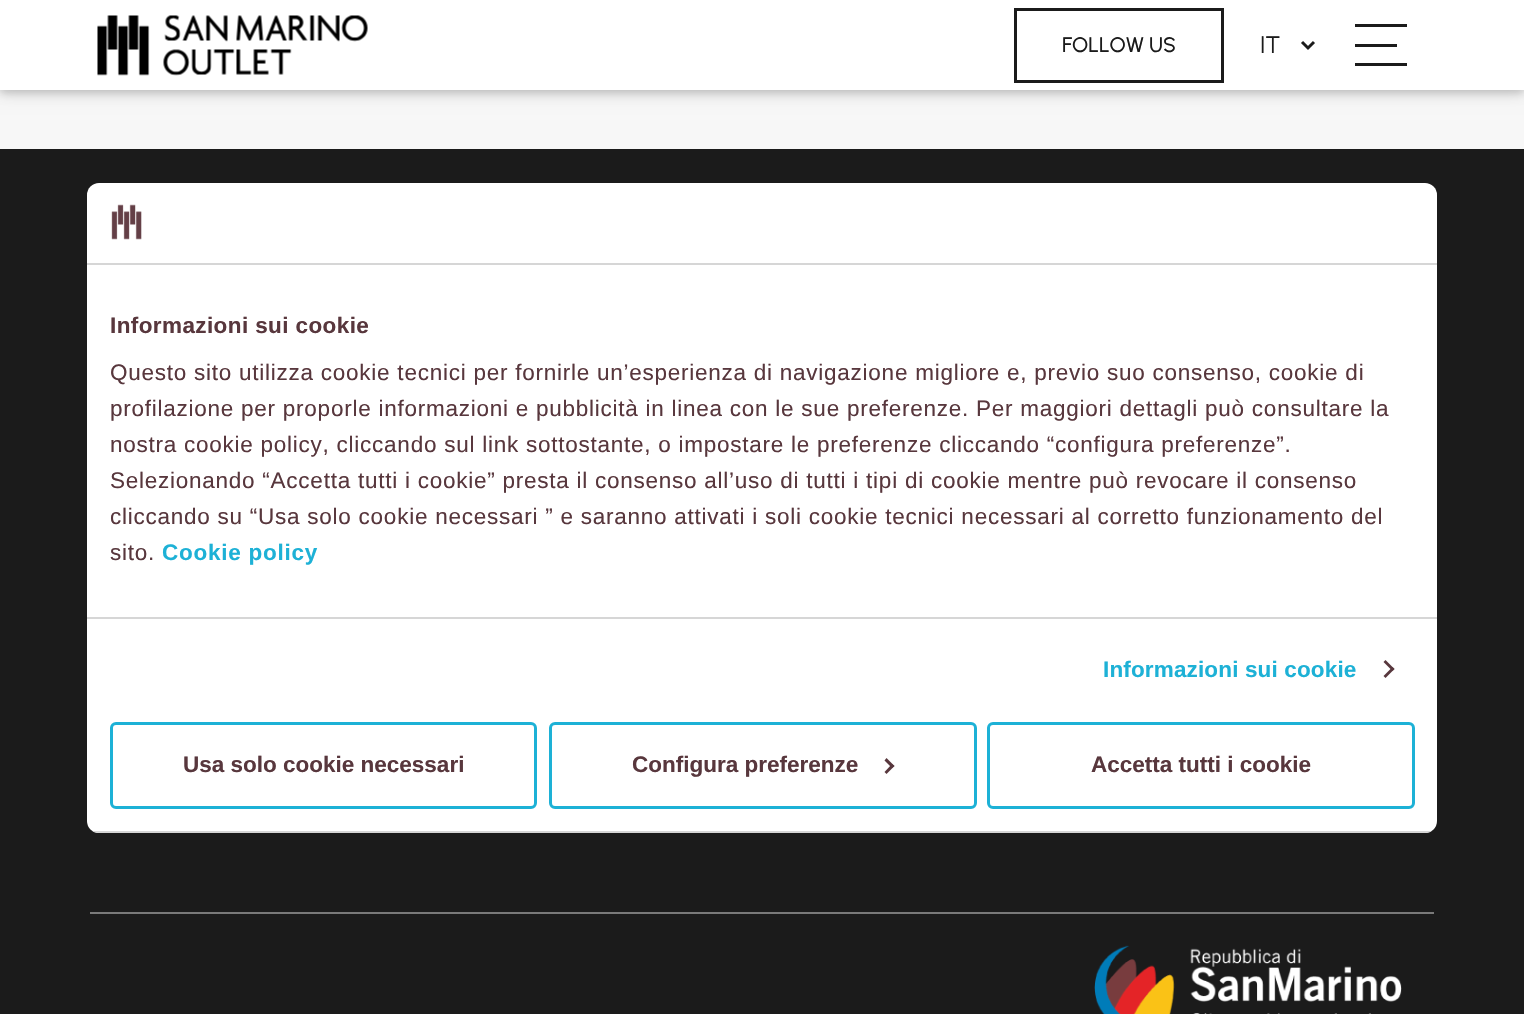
void draw(SkCanvas* canvas) {
	SkPaint paint;
	paint.setAntiAlias(true);
	auto spacedText = [&](const char* s, float x, float y, const SkFont& font, const SkPaint& ink, float letter, float word) {
		std::vector<SkGlyphID> glyphs(font.countText(s, strlen(s), SkTextEncoding::kUTF8));
		std::vector<float> xs(glyphs.size());
		font.textToGlyphs(s, strlen(s), SkTextEncoding::kUTF8, glyphs);
		font.getXPos(glyphs, xs, x);
		float extra = 0;
		for (size_t i = 0; i < glyphs.size(); i++) {
			xs[i] += extra;
			extra += letter + word * (glyphs[i] == font.unicharToGlyph(' '));
		}
		canvas->drawTextBlob(SkTextBlob::MakeFromPosHGlyphs(glyphs, xs, y, font), 0, 0, ink);
	};
	auto svgPath = [&](const char* data, bool evenOdd = false) {
		SkPath result = *SkParsePath::FromSVGString(data);
		if (evenOdd) result.setFillType(SkPathFillType::kEvenOdd);
		return result;
	};
	canvas->clear(0xfff7f7f7);
	paint.setColor(0x1f000000);
	paint.setMaskFilter(SkMaskFilter::MakeBlur(kNormal_SkBlurStyle, 7.5));
	canvas->drawRect(SkRect::MakeXYWH(0, 3, 1524, 90), paint);
	paint.setMaskFilter(nullptr);
	paint.setColor(0x29000000);
	paint.setMaskFilter(SkMaskFilter::MakeBlur(kNormal_SkBlurStyle, 4));
	canvas->drawRect(SkRect::MakeXYWH(0, 3, 1524, 90), paint);
	paint.setMaskFilter(nullptr);
	paint.setColor(0xffffffff);
	canvas->drawRect(SkRect::MakeXYWH(0, 0, 1524, 90), paint);
	canvas->drawImageRect(SkImages::DeferredFromEncodedData(SkData::MakeFromFileName("img1.png")), SkRect::MakeXYWH(97, 15, 271, 61), SkSamplingOptions());
	paint.setStroke(true);
	paint.setStrokeWidth(3);
	paint.setColor(0xff1b1b1b);
	canvas->drawRect(SkRect::MakeXYWH(1015.5, 9.5, 207, 72), paint);
	SkFont f1(fontMgr->matchFamilyStyle("Urbanist", SkFontStyle(500, SkFontStyle::kNormal_Width, SkFontStyle::kUpright_Slant)), 21);
	f1.setSubpixel(true);
	paint.setStroke(false);
	canvas->drawString("FOLLOW US", 1062, 52, f1, paint);
	paint.setStroke(true);
	canvas->drawPath(svgPath("M1302 42L1308 48L1314 42"), paint);
	SkFont f2(fontMgr->matchFamilyStyle("Urbanist", SkFontStyle::Normal()), 24);
	f2.setSubpixel(true);
	paint.setStroke(false);
	canvas->drawString("IT", 1260, 53, f2, paint);
	canvas->drawRect(SkRect::MakeXYWH(1355, 24, 52, 3), paint);
	canvas->drawRect(SkRect::MakeXYWH(1355, 44, 42, 3), paint);
	canvas->drawRect(SkRect::MakeXYWH(1355, 63, 52, 3), paint);
	canvas->drawRect(SkRect::MakeXYWH(0, 149, 1524, 865), paint);
	paint.setColor(0xff7a7a7a);
	canvas->drawRect(SkRect::MakeXYWH(90, 912, 1344, 2), paint);
	canvas->drawImageRect(SkImages::DeferredFromEncodedData(SkData::MakeFromFileName("img2.png")), SkRect::MakeXYWH(1094, 945, 308, 69), SkSamplingOptions());
	paint.setColor(0xffffffff);
	canvas->drawRoundRect(SkRect::MakeXYWH(87, 183, 1350, 650), 12, 12, paint);
	paint.setColor(0xffd6d6d6);
	canvas->drawRect(SkRect::MakeXYWH(87, 263, 1350, 2), paint);
	canvas->drawImageRect(SkImages::DeferredFromEncodedData(SkData::MakeFromFileName("img3.png")), SkRect::MakeXYWH(111, 204, 31, 36), SkSamplingOptions());
	canvas->drawRect(SkRect::MakeXYWH(87, 617, 1350, 2), paint);
	SkFont f3(fontMgr->matchFamilyStyle("Liberation Sans", SkFontStyle::Bold()), 22.5);
	f3.setSubpixel(true);
	paint.setColor(0xff58373d);
	spacedText("Informazioni sui cookie", 110, 333, f3, paint, 0.4, 0);
	SkFont f4(fontMgr->matchFamilyStyle("Liberation Sans", SkFontStyle::Normal()), 22.5);
	f4.setSubpixel(true);
	spacedText("Questo sito utilizza cookie tecnici per fornirle un’esperienza di navigazione migliore e, previo suo consenso, cookie di", 110, 380, f4, paint, 0.75, 0);
	spacedText("profilazione per proporle informazioni e pubblicità in linea con le sue preferenze. Per maggiori dettagli può consultare la", 110, 416, f4, paint, 0.75, 0);
	spacedText("nostra cookie policy, cliccando sul link sottostante, o impostare le preferenze cliccando “configura preferenze”.", 110, 452, f4, paint, 0.75, 0);
	spacedText("Selezionando “Accetta tutti i cookie” presta il consenso all’uso di tutti i tipi di cookie mentre può revocare il consenso", 110, 488, f4, paint, 0.75, 0);
	spacedText("cliccando su “Usa solo cookie necessari ” e saranno attivati i soli cookie tecnici necessari al corretto funzionamento del", 110, 524, f4, paint, 0.75, 0);
	spacedText("sito.", 110, 560, f4, paint, 0.75, 0);
	paint.setColor(0xff1db1d6);
	spacedText("Cookie policy", 162, 560, f3, paint, 0.75, 0);
	spacedText("Informazioni sui cookie", 1103, 677, f3, paint, 0.15, 0);
	paint.setColor(0xff58373d);
	canvas->drawPath(svgPath("M1385.5 660L1394.5 669L1392.5 671L1383.5 662Z"), paint);
	canvas->drawPath(svgPath("M1392.5 667L1394.5 669L1385.5 678L1383.5 676Z"), paint);
	canvas->save();
	canvas->clipPath(svgPath("M99 183H1425C1431.5 183 1437 188.5 1437 195V821C1437 827.5 1431.5 833 1425 833H99C92.5 833 87 827.5 87 821V195C87 188.5 92.5 183 99 183Z"), true);
	paint.setColor(0xffd6d6d6);
	canvas->drawRect(SkRect::MakeXYWH(87, 831, 1350, 2), paint);
	canvas->restore();
	paint.setStroke(true);
	paint.setColor(0xff1db1d6);
	canvas->drawRoundRect(SkRect::MakeXYWH(111.5, 723.5, 424, 84), 4.5, 4.5, paint);
	paint.setStroke(false);
	paint.setColor(0xff58373d);
	canvas->drawString("Usa solo cookie necessari", 183, 772, f3, paint);
	paint.setStroke(true);
	paint.setColor(0xff1db1d6);
	canvas->drawRoundRect(SkRect::MakeXYWH(550.5, 723.5, 425, 84), 4.5, 4.5, paint);
	paint.setStroke(false);
	paint.setColor(0xff58373d);
	canvas->drawString("Configura preferenze", 632, 772, f3, paint);
	canvas->drawPath(svgPath("M886.5 758L894.5 766L892 768L884.5 760.5Z"), paint);
	canvas->drawPath(svgPath("M892 764L894.5 766L886.5 774L884.5 772Z"), paint);
	paint.setStroke(true);
	paint.setColor(0xff1db1d6);
	canvas->drawRoundRect(SkRect::MakeXYWH(988.5, 723.5, 425, 84), 4.5, 4.5, paint);
	paint.setStroke(false);
	paint.setColor(0xff58373d);
	canvas->drawString("Accetta tutti i cookie", 1091, 772, f3, paint);
}
